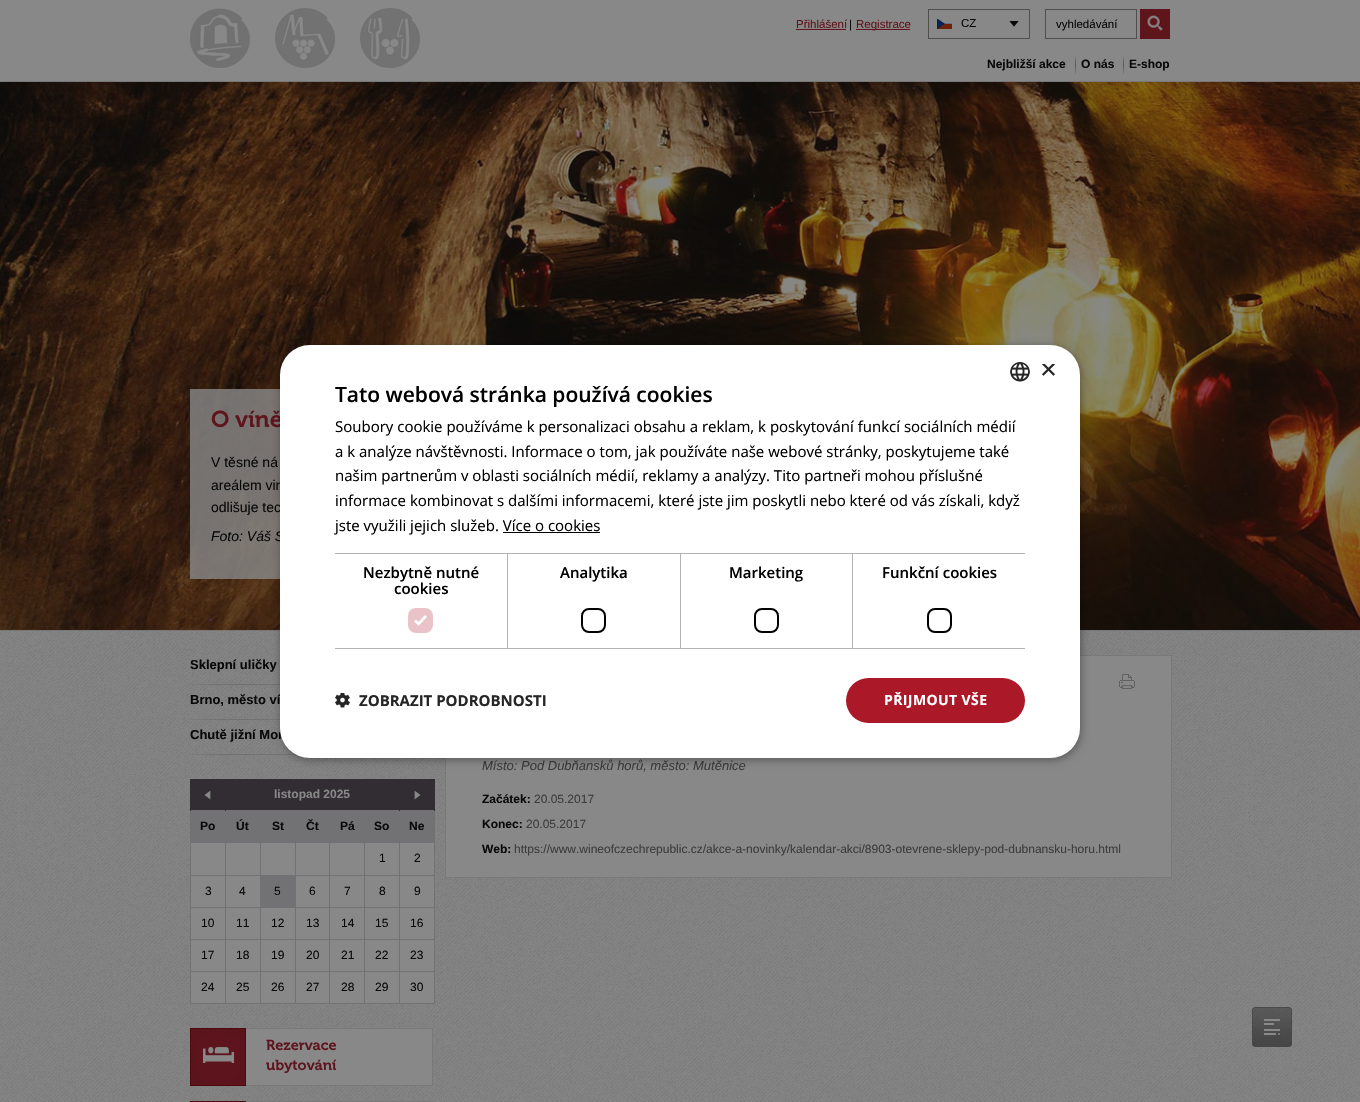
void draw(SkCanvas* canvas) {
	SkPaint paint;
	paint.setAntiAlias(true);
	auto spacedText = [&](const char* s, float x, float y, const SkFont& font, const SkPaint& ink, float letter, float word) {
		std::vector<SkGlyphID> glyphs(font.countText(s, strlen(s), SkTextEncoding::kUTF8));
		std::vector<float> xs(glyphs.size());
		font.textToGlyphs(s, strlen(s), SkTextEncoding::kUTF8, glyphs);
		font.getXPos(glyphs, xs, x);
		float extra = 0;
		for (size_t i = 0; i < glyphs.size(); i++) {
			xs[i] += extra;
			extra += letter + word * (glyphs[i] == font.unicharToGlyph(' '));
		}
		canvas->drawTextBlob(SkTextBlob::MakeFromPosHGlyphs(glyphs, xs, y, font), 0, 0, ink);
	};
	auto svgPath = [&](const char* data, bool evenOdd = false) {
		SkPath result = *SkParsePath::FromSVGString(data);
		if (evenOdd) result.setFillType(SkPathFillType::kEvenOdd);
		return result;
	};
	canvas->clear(0xffffffff);
	canvas->drawImageRect(SkImages::DeferredFromEncodedData(SkData::MakeFromFileName("img1.png")), SkRect::MakeXYWH(0, 631, 1360, 471), SkSamplingOptions());
	paint.setColor(0xff888888);
	canvas->drawRect(SkRect::MakeXYWH(0, 0, 1360, 81), paint);
	paint.setColor(0xff787878);
	canvas->drawRect(SkRect::MakeXYWH(0, 81, 1360, 1), paint);
	canvas->drawImageRect(SkImages::DeferredFromEncodedData(SkData::MakeFromFileName("img2.png")), SkRect::MakeXYWH(190, 8, 60, 60), SkSamplingOptions());
	canvas->drawImageRect(SkImages::DeferredFromEncodedData(SkData::MakeFromFileName("img3.png")), SkRect::MakeXYWH(275, 8, 60, 60), SkSamplingOptions());
	canvas->drawImageRect(SkImages::DeferredFromEncodedData(SkData::MakeFromFileName("img4.png")), SkRect::MakeXYWH(360, 8, 60, 60), SkSamplingOptions());
	SkFont f1(fontMgr->matchFamilyStyle("Liberation Sans", SkFontStyle::Normal()), 11.5);
	f1.setSubpixel(true);
	paint.setColor(0xff5f151d);
	canvas->drawString("Přihlášení", 796, 28, f1, paint);
	canvas->drawRect(SkRect::MakeXYWH(796, 29, 50, 1), paint);
	paint.setColor(0xff090909);
	canvas->drawString("|", 849, 28, f1, paint);
	paint.setColor(0xff5f151d);
	canvas->drawRect(SkRect::MakeXYWH(856, 29, 54, 1), paint);
	canvas->drawString("Registrace", 856, 28, f1, paint);
	paint.setStroke(true);
	paint.setStrokeWidth(1);
	paint.setColor(0xff4e4e4e);
	canvas->drawRect(SkRect::MakeXYWH(928.5, 9.5, 101, 29), paint);
	canvas->drawImageRect(SkImages::DeferredFromEncodedData(SkData::MakeFromFileName("img5.png")), SkRect::MakeXYWH(1009, 21, 10, 6), SkSamplingOptions());
	canvas->drawImageRect(SkImages::DeferredFromEncodedData(SkData::MakeFromFileName("img6.png")), SkRect::MakeXYWH(937, 19, 15, 10), SkSamplingOptions());
	paint.setStroke(false);
	paint.setColor(0xff090909);
	canvas->drawString("CZ", 961, 27, f1, paint);
	paint.setStroke(true);
	paint.setColor(0xff4e4e4e);
	canvas->drawRect(SkRect::MakeXYWH(1045.5, 9.5, 91, 29), paint);
	paint.setStroke(false);
	paint.setColor(0xff090909);
	canvas->drawString("vyhledávání", 1056, 28, f1, paint);
	canvas->drawImageRect(SkImages::DeferredFromEncodedData(SkData::MakeFromFileName("img7.png")), SkRect::MakeXYWH(1140, 9, 30, 30), SkSamplingOptions());
	SkFont f2(fontMgr->matchFamilyStyle("Liberation Sans", SkFontStyle::Bold()), 12);
	f2.setSubpixel(true);
	canvas->drawString("Nejbližší akce", 987, 68, f2, paint);
	canvas->drawImageRect(SkImages::DeferredFromEncodedData(SkData::MakeFromFileName("img8.png")), SkRect::MakeXYWH(1075, 57, 1, 19), SkSamplingOptions());
	canvas->drawString("O nás", 1081, 68, f2, paint);
	canvas->drawImageRect(SkImages::DeferredFromEncodedData(SkData::MakeFromFileName("img8.png")), SkRect::MakeXYWH(1123, 57, 1, 19), SkSamplingOptions());
	canvas->drawString("E-shop", 1129, 68, f2, paint);
	canvas->drawImageRect(SkImages::DeferredFromEncodedData(SkData::MakeFromFileName("img9.png")), SkRect::MakeXYWH(190, 684, 90, 1), SkSamplingOptions());
	SkFont f3(fontMgr->matchFamilyStyle("Liberation Sans", SkFontStyle::Bold()), 13);
	f3.setSubpixel(true);
	canvas->drawString("Sklepní uličky", 190, 669, f3, paint);
	canvas->drawImageRect(SkImages::DeferredFromEncodedData(SkData::MakeFromFileName("img10.png")), SkRect::MakeXYWH(191, 719, 89, 1), SkSamplingOptions());
	canvas->drawString("Brno, město ví", 190, 704, f3, paint);
	canvas->drawImageRect(SkImages::DeferredFromEncodedData(SkData::MakeFromFileName("img11.png")), SkRect::MakeXYWH(190, 754, 107, 1), SkSamplingOptions());
	canvas->drawString("Chutě jižní Mor", 190, 739, f3, paint);
	paint.setColor(0xff312d32);
	canvas->drawRect(SkRect::MakeXYWH(191, 779, 34, 31), paint);
	paint.setColor(0xff727173);
	canvas->drawRect(SkRect::MakeXYWH(190, 810, 245, 1), paint);
	canvas->drawRect(SkRect::MakeXYWH(225, 811, 210, 32), paint);
	canvas->drawRect(SkRect::MakeXYWH(260, 875, 35, 32), paint);
	canvas->drawRect(SkRect::MakeXYWH(225, 875, 36, 1), paint);
	canvas->drawRect(SkRect::MakeXYWH(399, 907, 36, 1), paint);
	canvas->drawRect(SkRect::MakeXYWH(399, 939, 36, 1), paint);
	canvas->drawRect(SkRect::MakeXYWH(399, 971, 36, 1), paint);
	canvas->drawRect(SkRect::MakeXYWH(434, 971, 1, 33), paint);
	canvas->drawRect(SkRect::MakeXYWH(399, 1003, 36, 1), paint);
	canvas->drawRect(SkRect::MakeXYWH(399, 971, 1, 33), paint);
	canvas->drawRect(SkRect::MakeXYWH(364, 971, 36, 1), paint);
	canvas->drawRect(SkRect::MakeXYWH(399, 939, 1, 33), paint);
	canvas->drawRect(SkRect::MakeXYWH(364, 939, 36, 1), paint);
	canvas->drawRect(SkRect::MakeXYWH(399, 907, 1, 33), paint);
	canvas->drawRect(SkRect::MakeXYWH(364, 907, 36, 1), paint);
	canvas->drawRect(SkRect::MakeXYWH(364, 1003, 36, 1), paint);
	canvas->drawRect(SkRect::MakeXYWH(364, 971, 1, 33), paint);
	canvas->drawRect(SkRect::MakeXYWH(329, 971, 36, 1), paint);
	canvas->drawRect(SkRect::MakeXYWH(364, 939, 1, 33), paint);
	canvas->drawRect(SkRect::MakeXYWH(329, 939, 36, 1), paint);
	canvas->drawRect(SkRect::MakeXYWH(364, 907, 1, 33), paint);
	canvas->drawRect(SkRect::MakeXYWH(329, 907, 36, 1), paint);
	canvas->drawRect(SkRect::MakeXYWH(329, 1003, 36, 1), paint);
	canvas->drawRect(SkRect::MakeXYWH(329, 971, 1, 33), paint);
	canvas->drawRect(SkRect::MakeXYWH(295, 971, 35, 1), paint);
	canvas->drawRect(SkRect::MakeXYWH(329, 939, 1, 33), paint);
	canvas->drawRect(SkRect::MakeXYWH(295, 939, 35, 1), paint);
	canvas->drawRect(SkRect::MakeXYWH(329, 907, 1, 33), paint);
	canvas->drawRect(SkRect::MakeXYWH(295, 907, 35, 1), paint);
	canvas->drawRect(SkRect::MakeXYWH(295, 1003, 35, 1), paint);
	canvas->drawRect(SkRect::MakeXYWH(295, 971, 1, 33), paint);
	canvas->drawRect(SkRect::MakeXYWH(260, 971, 36, 1), paint);
	canvas->drawRect(SkRect::MakeXYWH(295, 939, 1, 33), paint);
	canvas->drawRect(SkRect::MakeXYWH(260, 939, 36, 1), paint);
	canvas->drawRect(SkRect::MakeXYWH(295, 907, 1, 33), paint);
	canvas->drawRect(SkRect::MakeXYWH(260, 907, 36, 1), paint);
	canvas->drawRect(SkRect::MakeXYWH(260, 1003, 36, 1), paint);
	canvas->drawRect(SkRect::MakeXYWH(260, 971, 1, 33), paint);
	canvas->drawRect(SkRect::MakeXYWH(225, 971, 36, 1), paint);
	canvas->drawRect(SkRect::MakeXYWH(260, 939, 1, 33), paint);
	canvas->drawRect(SkRect::MakeXYWH(225, 939, 36, 1), paint);
	canvas->drawRect(SkRect::MakeXYWH(260, 907, 1, 33), paint);
	canvas->drawRect(SkRect::MakeXYWH(225, 907, 36, 1), paint);
	canvas->drawRect(SkRect::MakeXYWH(225, 1003, 36, 1), paint);
	canvas->drawRect(SkRect::MakeXYWH(225, 971, 1, 33), paint);
	canvas->drawRect(SkRect::MakeXYWH(190, 971, 36, 1), paint);
	canvas->drawRect(SkRect::MakeXYWH(225, 939, 1, 33), paint);
	canvas->drawRect(SkRect::MakeXYWH(190, 939, 36, 1), paint);
	canvas->drawRect(SkRect::MakeXYWH(225, 907, 1, 33), paint);
	canvas->drawRect(SkRect::MakeXYWH(190, 907, 36, 1), paint);
	canvas->drawRect(SkRect::MakeXYWH(225, 875, 1, 33), paint);
	canvas->drawRect(SkRect::MakeXYWH(190, 875, 36, 1), paint);
	canvas->drawRect(SkRect::MakeXYWH(225, 842, 1, 34), paint);
	canvas->drawRect(SkRect::MakeXYWH(190, 842, 36, 1), paint);
	canvas->drawRect(SkRect::MakeXYWH(190, 1003, 36, 1), paint);
	canvas->drawRect(SkRect::MakeXYWH(190, 971, 1, 33), paint);
	canvas->drawRect(SkRect::MakeXYWH(190, 939, 1, 33), paint);
	canvas->drawRect(SkRect::MakeXYWH(190, 907, 1, 33), paint);
	canvas->drawRect(SkRect::MakeXYWH(190, 875, 1, 33), paint);
	canvas->drawRect(SkRect::MakeXYWH(190, 842, 1, 34), paint);
	canvas->drawRect(SkRect::MakeXYWH(190, 810, 1, 33), paint);
	paint.setColor(0xff312d32);
	canvas->drawRect(SkRect::MakeXYWH(190, 779, 1, 32), paint);
	canvas->drawImageRect(SkImages::DeferredFromEncodedData(SkData::MakeFromFileName("img12.png")), SkRect::MakeXYWH(204, 790, 7, 10), SkSamplingOptions());
	canvas->drawRect(SkRect::MakeXYWH(226, 779, 173, 31), paint);
	canvas->drawRect(SkRect::MakeXYWH(225, 779, 1, 32), paint);
	paint.setColor(0xff888888);
	canvas->drawString("listopad 2025", 274, 798, f2, paint);
	paint.setColor(0xff312d32);
	canvas->drawRect(SkRect::MakeXYWH(400, 779, 34, 31), paint);
	canvas->drawRect(SkRect::MakeXYWH(434, 779, 1, 32), paint);
	canvas->drawRect(SkRect::MakeXYWH(399, 779, 1, 32), paint);
	canvas->drawImageRect(SkImages::DeferredFromEncodedData(SkData::MakeFromFileName("img13.png")), SkRect::MakeXYWH(414, 790, 7, 10), SkSamplingOptions());
	paint.setColor(0xff727173);
	canvas->drawRect(SkRect::MakeXYWH(191, 811, 34, 31), paint);
	paint.setColor(0xff090909);
	canvas->drawString("Po", 200, 830, f2, paint);
	canvas->drawString("Út", 236, 830, f2, paint);
	canvas->drawString("St", 272, 830, f2, paint);
	canvas->drawString("Čt", 306, 830, f2, paint);
	canvas->drawString("Pá", 340, 830, f2, paint);
	canvas->drawString("So", 374, 830, f2, paint);
	canvas->drawString("Ne", 409, 830, f2, paint);
	paint.setColor(0xff888888);
	canvas->drawRect(SkRect::MakeXYWH(191, 843, 34, 32), paint);
	canvas->drawRect(SkRect::MakeXYWH(226, 843, 34, 32), paint);
	canvas->drawRect(SkRect::MakeXYWH(261, 843, 34, 32), paint);
	paint.setColor(0xff727173);
	canvas->drawRect(SkRect::MakeXYWH(260, 842, 1, 34), paint);
	paint.setColor(0xff888888);
	canvas->drawRect(SkRect::MakeXYWH(296, 843, 33, 32), paint);
	canvas->drawRect(SkRect::MakeXYWH(330, 843, 34, 32), paint);
	paint.setColor(0xff727173);
	canvas->drawRect(SkRect::MakeXYWH(399, 875, 36, 1), paint);
	canvas->drawRect(SkRect::MakeXYWH(399, 875, 1, 33), paint);
	canvas->drawRect(SkRect::MakeXYWH(364, 875, 36, 1), paint);
	canvas->drawRect(SkRect::MakeXYWH(364, 875, 1, 33), paint);
	canvas->drawRect(SkRect::MakeXYWH(329, 875, 36, 1), paint);
	canvas->drawRect(SkRect::MakeXYWH(329, 875, 1, 33), paint);
	canvas->drawRect(SkRect::MakeXYWH(295, 875, 35, 1), paint);
	canvas->drawRect(SkRect::MakeXYWH(329, 842, 1, 34), paint);
	paint.setColor(0xff888888);
	canvas->drawRect(SkRect::MakeXYWH(365, 843, 34, 32), paint);
	paint.setColor(0xff727173);
	canvas->drawRect(SkRect::MakeXYWH(364, 842, 1, 34), paint);
	SkFont f4(fontMgr->matchFamilyStyle("Liberation Sans", SkFontStyle::Normal()), 12);
	f4.setSubpixel(true);
	paint.setColor(0xff090909);
	canvas->drawString("1", 379, 862, f4, paint);
	paint.setColor(0xff888888);
	canvas->drawRect(SkRect::MakeXYWH(400, 843, 34, 32), paint);
	paint.setColor(0xff727173);
	canvas->drawRect(SkRect::MakeXYWH(399, 842, 1, 34), paint);
	paint.setColor(0xff090909);
	canvas->drawString("2", 414, 862, f4, paint);
	paint.setColor(0xff888888);
	canvas->drawRect(SkRect::MakeXYWH(191, 876, 34, 31), paint);
	paint.setColor(0xff090909);
	canvas->drawString("3", 205, 895, f4, paint);
	paint.setColor(0xff888888);
	canvas->drawRect(SkRect::MakeXYWH(226, 876, 34, 31), paint);
	paint.setColor(0xff090909);
	canvas->drawString("4", 239, 895, f4, paint);
	canvas->drawString("5", 274, 895, f4, paint);
	paint.setColor(0xff888888);
	canvas->drawRect(SkRect::MakeXYWH(296, 876, 33, 31), paint);
	paint.setColor(0xff727173);
	canvas->drawRect(SkRect::MakeXYWH(295, 842, 1, 66), paint);
	paint.setColor(0xff090909);
	canvas->drawString("6", 309, 895, f4, paint);
	paint.setColor(0xff888888);
	canvas->drawRect(SkRect::MakeXYWH(330, 876, 34, 31), paint);
	paint.setColor(0xff090909);
	canvas->drawString("7", 344, 895, f4, paint);
	paint.setColor(0xff888888);
	canvas->drawRect(SkRect::MakeXYWH(365, 876, 34, 31), paint);
	paint.setColor(0xff090909);
	canvas->drawString("8", 379, 895, f4, paint);
	paint.setColor(0xff888888);
	canvas->drawRect(SkRect::MakeXYWH(400, 876, 34, 31), paint);
	paint.setColor(0xff727173);
	canvas->drawRect(SkRect::MakeXYWH(434, 939, 1, 33), paint);
	canvas->drawRect(SkRect::MakeXYWH(434, 907, 1, 33), paint);
	canvas->drawRect(SkRect::MakeXYWH(434, 842, 1, 66), paint);
	paint.setColor(0xff090909);
	canvas->drawString("9", 414, 895, f4, paint);
	paint.setColor(0xff888888);
	canvas->drawRect(SkRect::MakeXYWH(191, 908, 34, 31), paint);
	paint.setColor(0xff090909);
	canvas->drawString("10", 201, 927, f4, paint);
	paint.setColor(0xff888888);
	canvas->drawRect(SkRect::MakeXYWH(226, 908, 34, 31), paint);
	paint.setColor(0xff090909);
	canvas->drawString("11", 236, 927, f4, paint);
	paint.setColor(0xff888888);
	canvas->drawRect(SkRect::MakeXYWH(261, 908, 34, 31), paint);
	paint.setColor(0xff090909);
	canvas->drawString("12", 271, 927, f4, paint);
	paint.setColor(0xff888888);
	canvas->drawRect(SkRect::MakeXYWH(296, 908, 33, 31), paint);
	paint.setColor(0xff090909);
	canvas->drawString("13", 306, 927, f4, paint);
	paint.setColor(0xff888888);
	canvas->drawRect(SkRect::MakeXYWH(330, 908, 34, 31), paint);
	paint.setColor(0xff090909);
	canvas->drawString("14", 341, 927, f4, paint);
	paint.setColor(0xff888888);
	canvas->drawRect(SkRect::MakeXYWH(365, 908, 34, 31), paint);
	paint.setColor(0xff090909);
	canvas->drawString("15", 375, 927, f4, paint);
	paint.setColor(0xff888888);
	canvas->drawRect(SkRect::MakeXYWH(400, 908, 34, 31), paint);
	paint.setColor(0xff090909);
	canvas->drawString("16", 410, 927, f4, paint);
	paint.setColor(0xff888888);
	canvas->drawRect(SkRect::MakeXYWH(191, 940, 34, 31), paint);
	paint.setColor(0xff090909);
	canvas->drawString("17", 201, 959, f4, paint);
	paint.setColor(0xff888888);
	canvas->drawRect(SkRect::MakeXYWH(226, 940, 34, 31), paint);
	paint.setColor(0xff090909);
	canvas->drawString("18", 236, 959, f4, paint);
	paint.setColor(0xff888888);
	canvas->drawRect(SkRect::MakeXYWH(261, 940, 34, 31), paint);
	paint.setColor(0xff090909);
	canvas->drawString("19", 271, 959, f4, paint);
	paint.setColor(0xff888888);
	canvas->drawRect(SkRect::MakeXYWH(296, 940, 33, 31), paint);
	paint.setColor(0xff090909);
	canvas->drawString("20", 306, 959, f4, paint);
	paint.setColor(0xff888888);
	canvas->drawRect(SkRect::MakeXYWH(330, 940, 34, 31), paint);
	paint.setColor(0xff090909);
	canvas->drawString("21", 341, 959, f4, paint);
	paint.setColor(0xff888888);
	canvas->drawRect(SkRect::MakeXYWH(365, 940, 34, 31), paint);
	paint.setColor(0xff090909);
	canvas->drawString("22", 375, 959, f4, paint);
	paint.setColor(0xff888888);
	canvas->drawRect(SkRect::MakeXYWH(400, 940, 34, 31), paint);
	paint.setColor(0xff090909);
	canvas->drawString("23", 410, 959, f4, paint);
	paint.setColor(0xff888888);
	canvas->drawRect(SkRect::MakeXYWH(191, 972, 34, 31), paint);
	paint.setColor(0xff090909);
	canvas->drawString("24", 201, 991, f4, paint);
	paint.setColor(0xff888888);
	canvas->drawRect(SkRect::MakeXYWH(226, 972, 34, 31), paint);
	paint.setColor(0xff090909);
	canvas->drawString("25", 236, 991, f4, paint);
	paint.setColor(0xff888888);
	canvas->drawRect(SkRect::MakeXYWH(261, 972, 34, 31), paint);
	paint.setColor(0xff090909);
	canvas->drawString("26", 271, 991, f4, paint);
	paint.setColor(0xff888888);
	canvas->drawRect(SkRect::MakeXYWH(296, 972, 33, 31), paint);
	paint.setColor(0xff090909);
	canvas->drawString("27", 306, 991, f4, paint);
	paint.setColor(0xff888888);
	canvas->drawRect(SkRect::MakeXYWH(330, 972, 34, 31), paint);
	paint.setColor(0xff090909);
	canvas->drawString("28", 341, 991, f4, paint);
	paint.setColor(0xff888888);
	canvas->drawRect(SkRect::MakeXYWH(365, 972, 34, 31), paint);
	paint.setColor(0xff090909);
	canvas->drawString("29", 375, 991, f4, paint);
	paint.setColor(0xff888888);
	canvas->drawRect(SkRect::MakeXYWH(400, 972, 34, 31), paint);
	paint.setColor(0xff090909);
	canvas->drawString("30", 410, 991, f4, paint);
	canvas->drawImageRect(SkImages::DeferredFromEncodedData(SkData::MakeFromFileName("img14.png")), SkRect::MakeXYWH(190, 1028, 243, 58), SkSamplingOptions());
	SkFont f5(fontMgr->matchFamilyStyle("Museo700", SkFontStyle::Normal()), 14.5);
	f5.setSubpixel(true);
	paint.setColor(0xff5f151d);
	canvas->drawString("Rezervace", 266, 1050, f5, paint);
	canvas->drawString("ubytování", 266, 1070, f5, paint);
	canvas->drawImageRect(SkImages::DeferredFromEncodedData(SkData::MakeFromFileName("img15.png")), SkRect::MakeXYWH(190, 1101, 243, 1), SkSamplingOptions());
	paint.setColor(0xff888888);
	canvas->drawRect(SkRect::MakeXYWH(445.5, 655.5, 726, 222), paint);
	paint.setStroke(true);
	paint.setColor(0xff797979);
	canvas->drawRect(SkRect::MakeXYWH(445.5, 655.5, 726, 222), paint);
	canvas->drawImageRect(SkImages::DeferredFromEncodedData(SkData::MakeFromFileName("img16.png")), SkRect::MakeXYWH(1119, 674, 16, 15), SkSamplingOptions());
	SkFont f6(fontMgr->matchFamilyStyle("Liberation Sans", SkFontStyle::Italic()), 13);
	f6.setSubpixel(true);
	paint.setStroke(false);
	paint.setColor(0xff3c3c3c);
	canvas->drawString("Místo: Pod Dubňansků horů, město: Mutěnice", 482, 770, f6, paint);
	paint.setColor(0xff090909);
	canvas->drawString("Začátek:", 482, 803, f2, paint);
	paint.setColor(0xff3c3c3c);
	canvas->drawString("20.05.2017", 534, 803, f4, paint);
	paint.setColor(0xff090909);
	canvas->drawString("Konec:", 482, 828, f2, paint);
	paint.setColor(0xff3c3c3c);
	canvas->drawString("20.05.2017", 526, 828, f4, paint);
	paint.setColor(0xff090909);
	canvas->drawString("Web:", 482, 853, f2, paint);
	paint.setColor(0xff3c3c3c);
	canvas->drawString("https://www.wineofczechrepublic.cz/akce-a-novinky/kalendar-akci/8903-otevrene-sklepy-pod-dubnansku-horu.html", 514, 853, f4, paint);
	canvas->drawImageRect(SkImages::DeferredFromEncodedData(SkData::MakeFromFileName("img17.png")), SkRect::MakeXYWH(1252, 1007, 40, 40), SkSamplingOptions());
	paint.setColor(0xff787878);
	canvas->drawRect(SkRect::MakeXYWH(0, 630, 1360, 1), paint);
	canvas->drawImageRect(SkImages::DeferredFromEncodedData(SkData::MakeFromFileName("img18.png")), SkRect::MakeXYWH(0, 82, 1360, 548), SkSamplingOptions());
	paint.setColor(0xcc888888);
	canvas->drawRect(SkRect::MakeXYWH(190, 389, 90, 190), paint);
	SkFont f7(fontMgr->matchFamilyStyle("Museo700", SkFontStyle::Normal()), 23);
	f7.setSubpixel(true);
	paint.setColor(0xff5f151d);
	canvas->drawString("O víně", 211, 427, f7, paint);
	SkFont f8(fontMgr->matchFamilyStyle("Liberation Sans", SkFontStyle::Normal()), 14);
	f8.setSubpixel(true);
	paint.setColor(0xff090909);
	canvas->drawString("V těsné ná", 211, 467, f8, paint);
	canvas->drawString("areálem vin", 211, 490, f8, paint);
	canvas->drawString("odlišuje tec", 211, 512, f8, paint);
	SkFont f9(fontMgr->matchFamilyStyle("Liberation Sans", SkFontStyle::Italic()), 14);
	f9.setSubpixel(true);
	canvas->drawString("Foto: Váš S", 211, 541, f9, paint);
	paint.setColor(0x59000000);
	paint.setMaskFilter(SkMaskFilter::MakeBlur(kNormal_SkBlurStyle, 4));
	canvas->drawRoundRect(SkRect::MakeXYWH(281, 347, 800, 413), 30, 30, paint);
	paint.setMaskFilter(nullptr);
	paint.setColor(0xffffffff);
	canvas->drawRoundRect(SkRect::MakeXYWH(280, 345, 800, 413), 30, 30, paint);
	canvas->drawImageRect(SkImages::DeferredFromEncodedData(SkData::MakeFromFileName("img19.png")), SkRect::MakeXYWH(1010, 362, 20, 20), SkSamplingOptions());
	canvas->save();
	canvas->clipRect(SkRect::MakeXYWH(1040, 364, 15, 15));
	SkFont f10(fontMgr->matchFamilyStyle("Liberation Sans", SkFontStyle::Normal()), 29);
	f10.setSubpixel(true);
	paint.setColor(0xff262626);
	canvas->drawString("×", 1040, 379, f10, paint);
	canvas->restore();
	SkFont f11(fontMgr->matchFamilyStyle("Open Sans", SkFontStyle(600, SkFontStyle::kNormal_Width, SkFontStyle::kUpright_Slant)), 21);
	f11.setSubpixel(true);
	paint.setColor(0xff000000);
	canvas->drawString("Tato webová stránka používá cookies", 335, 402, f11, paint);
	SkFont f12(fontMgr->matchFamilyStyle("Open Sans", SkFontStyle::Normal()), 15);
	f12.setSubpixel(true);
	canvas->drawString("Soubory cookie používáme k personalizaci obsahu a reklam, k poskytování funkcí sociálních médií", 335, 432, f12, paint);
	canvas->drawString("a k analýze návštěvnosti. Informace o tom, jak používáte naše webové stránky, poskytujeme také", 335, 457, f12, paint);
	canvas->drawString("našim partnerům v oblasti sociálních médií, reklamy a analýzy. Tito partneři mohou příslušné", 335, 481, f12, paint);
	canvas->drawString("informace kombinovat s dalšími informacemi, které jste jim poskytli nebo které od vás získali, když", 335, 506, f12, paint);
	canvas->drawString("jste využili jejich služeb. Více o cookies", 335, 531, f12, paint);
	canvas->drawRect(SkRect::MakeXYWH(503, 532, 97, 1), paint);
	paint.setColor(0xffb3b3b3);
	canvas->drawRect(SkRect::MakeXYWH(335, 553, 690, 1), paint);
	canvas->drawRect(SkRect::MakeXYWH(507, 553, 1, 96), paint);
	canvas->drawRect(SkRect::MakeXYWH(335, 648, 173, 1), paint);
	SkFont f13(fontMgr->matchFamilyStyle("Open Sans", SkFontStyle(600, SkFontStyle::kNormal_Width, SkFontStyle::kUpright_Slant)), 15);
	f13.setSubpixel(true);
	paint.setColor(0xff000000);
	canvas->drawString("Nezbytně nutné", 363, 578, f13, paint);
	canvas->drawString("cookies", 394, 594, f13, paint);
	paint.setColor(0xffe9c3c7);
	canvas->drawRoundRect(SkRect::MakeXYWH(408, 608, 25, 25), 8, 8, paint);
	paint.setStroke(true);
	paint.setStrokeWidth(2.6);
	paint.setColor(0xffffffff);
	canvas->drawPath(svgPath("M415 620.5L418.5 624L426 616"), paint);
	paint.setStroke(false);
	paint.setColor(0xffb3b3b3);
	canvas->drawRect(SkRect::MakeXYWH(680, 553, 1, 96), paint);
	canvas->drawRect(SkRect::MakeXYWH(508, 648, 173, 1), paint);
	paint.setColor(0xff000000);
	canvas->drawString("Analytika", 560, 578, f13, paint);
	paint.setStroke(true);
	paint.setStrokeWidth(2);
	canvas->drawRoundRect(SkRect::MakeXYWH(582, 609, 23, 23), 7, 7, paint);
	paint.setStroke(false);
	paint.setColor(0xffb3b3b3);
	canvas->drawRect(SkRect::MakeXYWH(852, 553, 1, 96), paint);
	canvas->drawRect(SkRect::MakeXYWH(681, 648, 344, 1), paint);
	paint.setColor(0xff000000);
	canvas->drawString("Marketing", 729, 578, f13, paint);
	paint.setStroke(true);
	canvas->drawRoundRect(SkRect::MakeXYWH(755, 609, 23, 23), 7, 7, paint);
	paint.setStroke(false);
	canvas->drawString("Funkční cookies", 882, 578, f13, paint);
	paint.setStroke(true);
	canvas->drawRoundRect(SkRect::MakeXYWH(928, 609, 23, 23), 7, 7, paint);
	canvas->drawImageRect(SkImages::DeferredFromEncodedData(SkData::MakeFromFileName("img20.png")), SkRect::MakeXYWH(335, 693, 15, 15), SkSamplingOptions());
	SkFont f14(fontMgr->matchFamilyStyle("Open Sans", SkFontStyle::Bold()), 15);
	f14.setSubpixel(true);
	paint.setStroke(false);
	paint.setColor(0xff262626);
	canvas->drawString("ZOBRAZIT PODROBNOSTI", 359, 706, f14, paint);
	paint.setColor(0xffab1828);
	canvas->drawRoundRect(SkRect::MakeXYWH(846, 678, 179, 45), 22.5, 22.5, paint);
	SkFont f15(fontMgr->matchFamilyStyle("Open Sans", SkFontStyle::Bold()), 14);
	f15.setSubpixel(true);
	paint.setColor(0xffffffff);
	spacedText("PŘIJMOUT VŠE", 884, 705, f15, paint, 0.4, 0);
}
